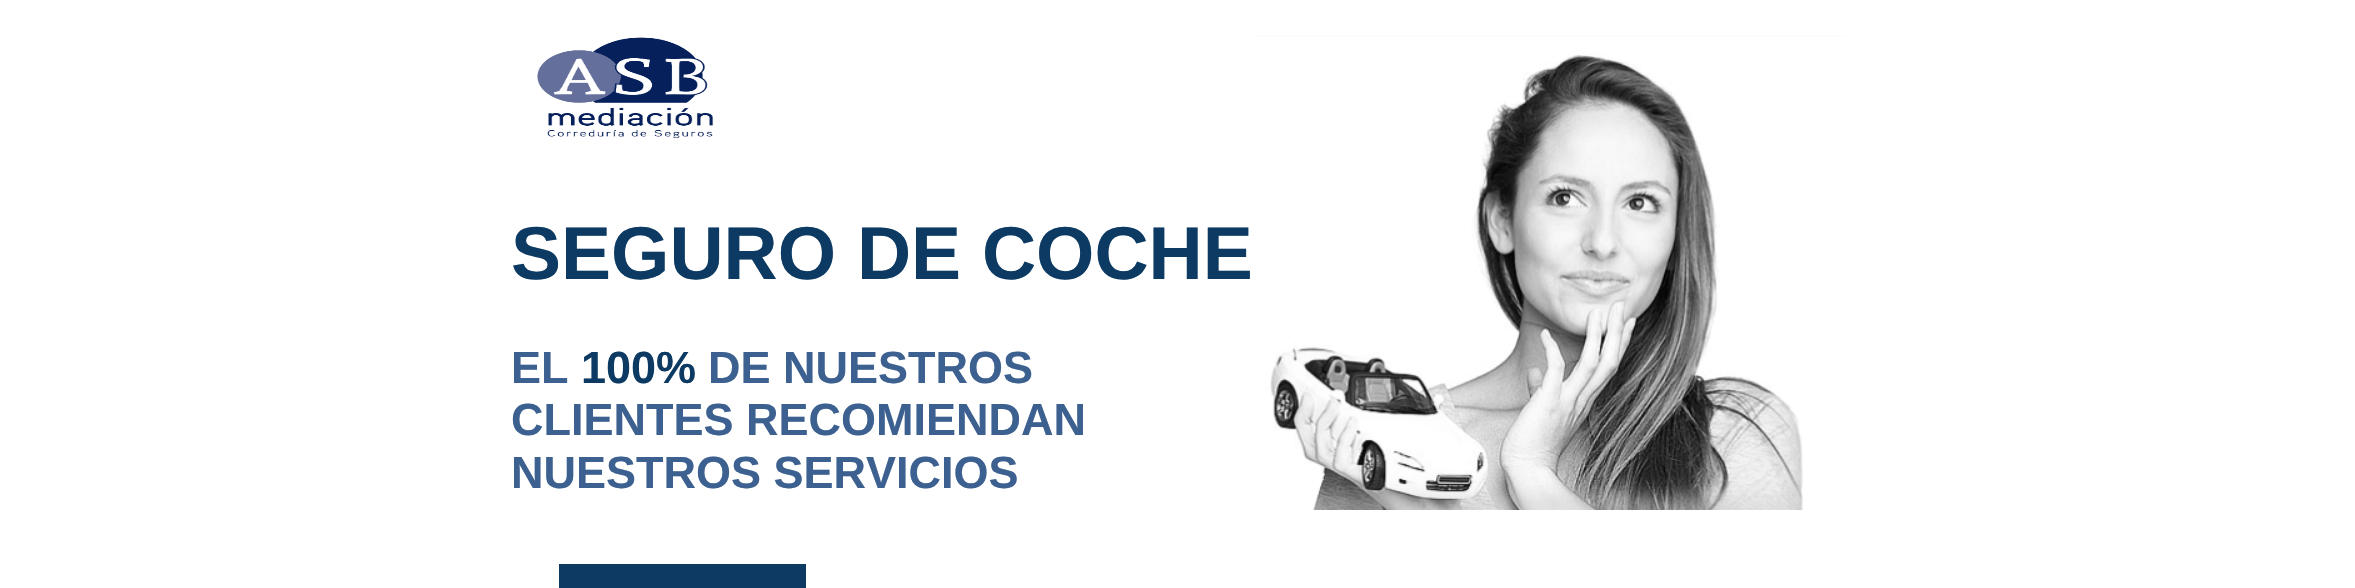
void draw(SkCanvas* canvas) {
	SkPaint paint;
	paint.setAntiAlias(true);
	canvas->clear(0xffffffff);
	canvas->drawImageRect(SkImages::DeferredFromEncodedData(SkData::MakeFromFileName("img1.png")), SkRect::MakeXYWH(537, 37, 177, 102), SkSamplingOptions());
	canvas->drawImageRect(SkImages::DeferredFromEncodedData(SkData::MakeFromFileName("img2.png")), SkRect::MakeXYWH(1258, 35, 587, 475), SkSamplingOptions());
	SkFont f1(fontMgr->matchFamilyStyle("Liberation Sans", SkFontStyle::Bold()), 75);
	f1.setSubpixel(true);
	paint.setColor(0xff0c3a63);
	canvas->drawString("SEGURO DE COCHE", 511, 279, f1, paint);
	SkFont f2(fontMgr->matchFamilyStyle("Liberation Sans", SkFontStyle::Bold()), 45);
	f2.setSubpixel(true);
	paint.setColor(0xff3c6090);
	canvas->drawString("EL", 511, 383, f2, paint);
	paint.setColor(0xff0c3a63);
	canvas->drawString("100%", 581, 383, f2, paint);
	paint.setColor(0xff3c6090);
	canvas->drawString("DE NUESTROS", 708, 383, f2, paint);
	canvas->drawString("CLIENTES RECOMIENDAN", 511, 435, f2, paint);
	canvas->drawString("NUESTROS SERVICIOS", 511, 488, f2, paint);
	paint.setColor(0xff0c3a63);
	canvas->drawRect(SkRect::MakeXYWH(559, 564, 247, 24), paint);
}
